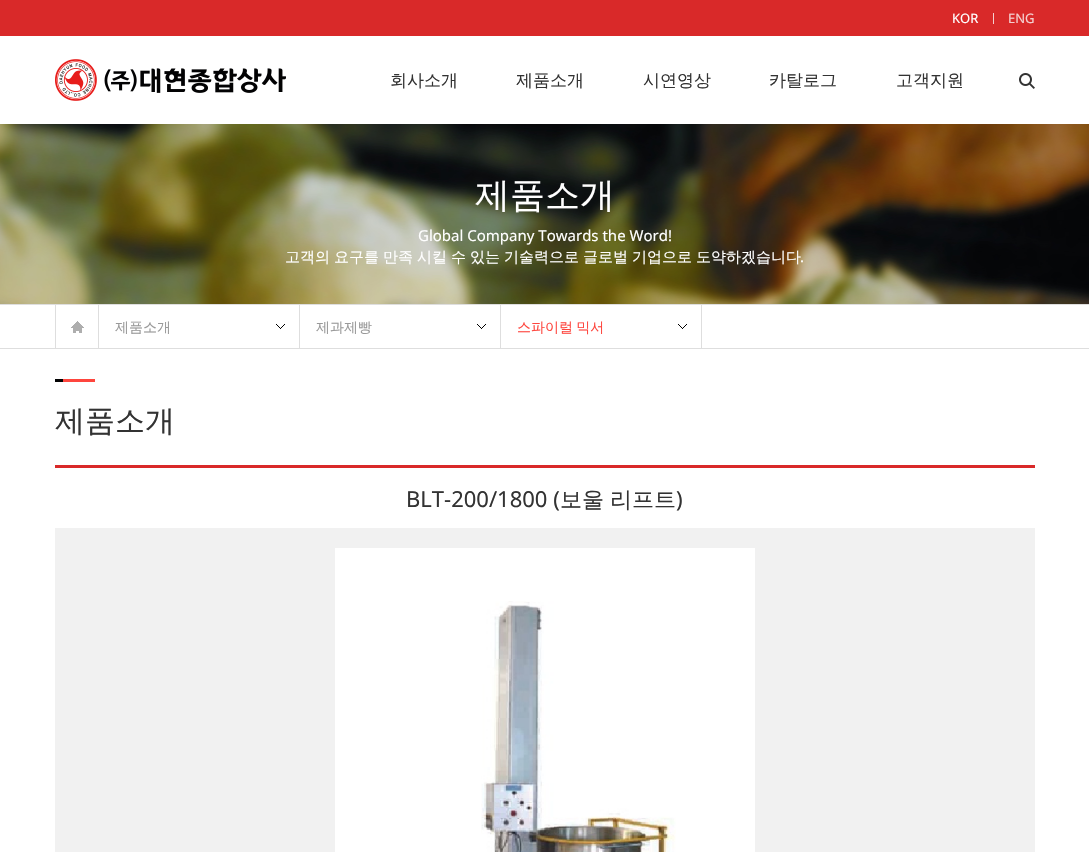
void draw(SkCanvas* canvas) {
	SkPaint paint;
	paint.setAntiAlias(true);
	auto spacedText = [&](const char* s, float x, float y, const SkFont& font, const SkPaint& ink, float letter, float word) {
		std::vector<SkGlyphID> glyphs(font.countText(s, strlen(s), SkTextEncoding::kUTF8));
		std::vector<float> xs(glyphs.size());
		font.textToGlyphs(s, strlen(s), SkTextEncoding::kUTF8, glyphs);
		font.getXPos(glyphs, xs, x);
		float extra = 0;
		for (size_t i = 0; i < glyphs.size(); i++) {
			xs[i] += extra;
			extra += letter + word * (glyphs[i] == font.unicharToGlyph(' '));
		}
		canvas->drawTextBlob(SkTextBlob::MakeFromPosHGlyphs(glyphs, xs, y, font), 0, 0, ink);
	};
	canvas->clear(0xffffffff);
	paint.setColor(0xffd92929);
	canvas->drawRect(SkRect::MakeXYWH(0, 0, 1089, 36), paint);
	SkFont f1(fontMgr->matchFamilyStyle("Noto Sans", SkFontStyle::Normal()), 13);
	f1.setSubpixel(true);
	paint.setColor(0xffffffff);
	canvas->drawString("KOR", 952, 23, f1, paint);
	paint.setColor(0xfff4cfcf);
	canvas->drawRect(SkRect::MakeXYWH(993, 13, 1, 11), paint);
	canvas->drawString("ENG", 1008, 23, f1, paint);
	canvas->drawImageRect(SkImages::DeferredFromEncodedData(SkData::MakeFromFileName("img1.png")), SkRect::MakeXYWH(55, 59, 231, 42), SkSamplingOptions());
	SkFont f2(fontMgr->matchFamilyStyle("WenQuanYi Zen Hei", SkFontStyle(500, SkFontStyle::kNormal_Width, SkFontStyle::kUpright_Slant)), 17);
	f2.setSubpixel(true);
	paint.setColor(0xff333333);
	canvas->drawString("회사소개", 390, 86, f2, paint);
	canvas->drawString("제품소개", 516, 86, f2, paint);
	canvas->drawString("시연영상", 643, 86, f2, paint);
	canvas->drawString("카탈로그", 769, 86, f2, paint);
	canvas->drawString("고객지원", 896, 86, f2, paint);
	canvas->drawImageRect(SkImages::DeferredFromEncodedData(SkData::MakeFromFileName("img2.png")), SkRect::MakeXYWH(1019, 73, 16, 16), SkSamplingOptions());
	canvas->drawImageRect(SkImages::DeferredFromEncodedData(SkData::MakeFromFileName("img3.png")), SkRect::MakeXYWH(0, 124, 1089, 180), SkSamplingOptions());
	SkFont f3(fontMgr->matchFamilyStyle("WenQuanYi Zen Hei", SkFontStyle(500, SkFontStyle::kNormal_Width, SkFontStyle::kUpright_Slant)), 35);
	f3.setSubpixel(true);
	paint.setColor(0xffffffff);
	canvas->drawString("제품소개", 475, 207, f3, paint);
	SkFont f4(fontMgr->matchFamilyStyle("Noto Sans", SkFontStyle::Normal()), 15);
	f4.setSubpixel(true);
	canvas->drawString("Global Company Towards the Word!", 418, 241, f4, paint);
	SkFont f5(fontMgr->matchFamilyStyle("WenQuanYi Zen Hei", SkFontStyle(500, SkFontStyle::kNormal_Width, SkFontStyle::kUpright_Slant)), 15);
	f5.setSubpixel(true);
	spacedText("고객의 요구를 만족 시킬 수 있는 기술력으로 글로벌 기업으로 도약하겠습니다", 285, 262, f5, paint, 0, -0.5);
	canvas->drawString(".", 800, 262, f4, paint);
	paint.setColor(0xffdedede);
	canvas->drawRect(SkRect::MakeXYWH(0, 304, 1089, 1), paint);
	canvas->drawRect(SkRect::MakeXYWH(0, 348, 1089, 1), paint);
	canvas->drawRect(SkRect::MakeXYWH(55, 305, 1, 43), paint);
	canvas->drawRect(SkRect::MakeXYWH(98, 305, 1, 43), paint);
	canvas->drawImageRect(SkImages::DeferredFromEncodedData(SkData::MakeFromFileName("img4.png")), SkRect::MakeXYWH(71, 321, 13, 12), SkSamplingOptions());
	canvas->drawRect(SkRect::MakeXYWH(299, 305, 1, 43), paint);
	canvas->drawImageRect(SkImages::DeferredFromEncodedData(SkData::MakeFromFileName("img5.png")), SkRect::MakeXYWH(276, 324, 9, 5), SkSamplingOptions());
	SkFont f6(fontMgr->matchFamilyStyle("WenQuanYi Zen Hei", SkFontStyle(500, SkFontStyle::kNormal_Width, SkFontStyle::kUpright_Slant)), 14);
	f6.setSubpixel(true);
	paint.setColor(0xff999999);
	canvas->drawString("제품소개", 115, 332, f6, paint);
	paint.setColor(0xffdedede);
	canvas->drawRect(SkRect::MakeXYWH(500, 305, 1, 43), paint);
	canvas->drawImageRect(SkImages::DeferredFromEncodedData(SkData::MakeFromFileName("img5.png")), SkRect::MakeXYWH(477, 324, 9, 5), SkSamplingOptions());
	paint.setColor(0xff999999);
	canvas->drawString("제과제빵", 316, 332, f6, paint);
	paint.setColor(0xffdedede);
	canvas->drawRect(SkRect::MakeXYWH(701, 305, 1, 43), paint);
	canvas->drawImageRect(SkImages::DeferredFromEncodedData(SkData::MakeFromFileName("img5.png")), SkRect::MakeXYWH(678, 324, 9, 5), SkSamplingOptions());
	paint.setColor(0xfffe453d);
	spacedText("스파이럴 믹서", 517, 332, f6, paint, 0, -1);
	canvas->drawRect(SkRect::MakeXYWH(55, 379, 40, 3), paint);
	paint.setColor(0xff020203);
	canvas->drawRect(SkRect::MakeXYWH(55, 379, 8, 3), paint);
	SkFont f7(fontMgr->matchFamilyStyle("WenQuanYi Zen Hei", SkFontStyle(500, SkFontStyle::kNormal_Width, SkFontStyle::kUpright_Slant)), 30);
	f7.setSubpixel(true);
	paint.setColor(0xff333333);
	canvas->drawString("제품소개", 55, 431, f7, paint);
	paint.setColor(0xffd92929);
	canvas->drawRect(SkRect::MakeXYWH(55, 465, 980, 3), paint);
	SkFont f8(fontMgr->matchFamilyStyle("Noto Sans", SkFontStyle::Normal()), 22);
	f8.setSubpixel(true);
	paint.setColor(0xff333333);
	canvas->drawString("BLT-200/1800 (", 406, 507, f8, paint);
	SkFont f9(fontMgr->matchFamilyStyle("WenQuanYi Zen Hei", SkFontStyle(500, SkFontStyle::kNormal_Width, SkFontStyle::kUpright_Slant)), 22);
	f9.setSubpixel(true);
	canvas->drawString("보울", 560, 507, f9, paint);
	canvas->drawString("리프트", 610, 507, f9, paint);
	canvas->drawString(")", 676, 507, f8, paint);
	paint.setColor(0xfff1f1f1);
	canvas->drawRect(SkRect::MakeXYWH(55, 528, 980, 324), paint);
	paint.setColor(0xffffffff);
	canvas->drawRect(SkRect::MakeXYWH(335, 548, 420, 304), paint);
	canvas->drawImageRect(SkImages::DeferredFromEncodedData(SkData::MakeFromFileName("img6.png")), SkRect::MakeXYWH(481, 601, 195, 251), SkSamplingOptions());
}
